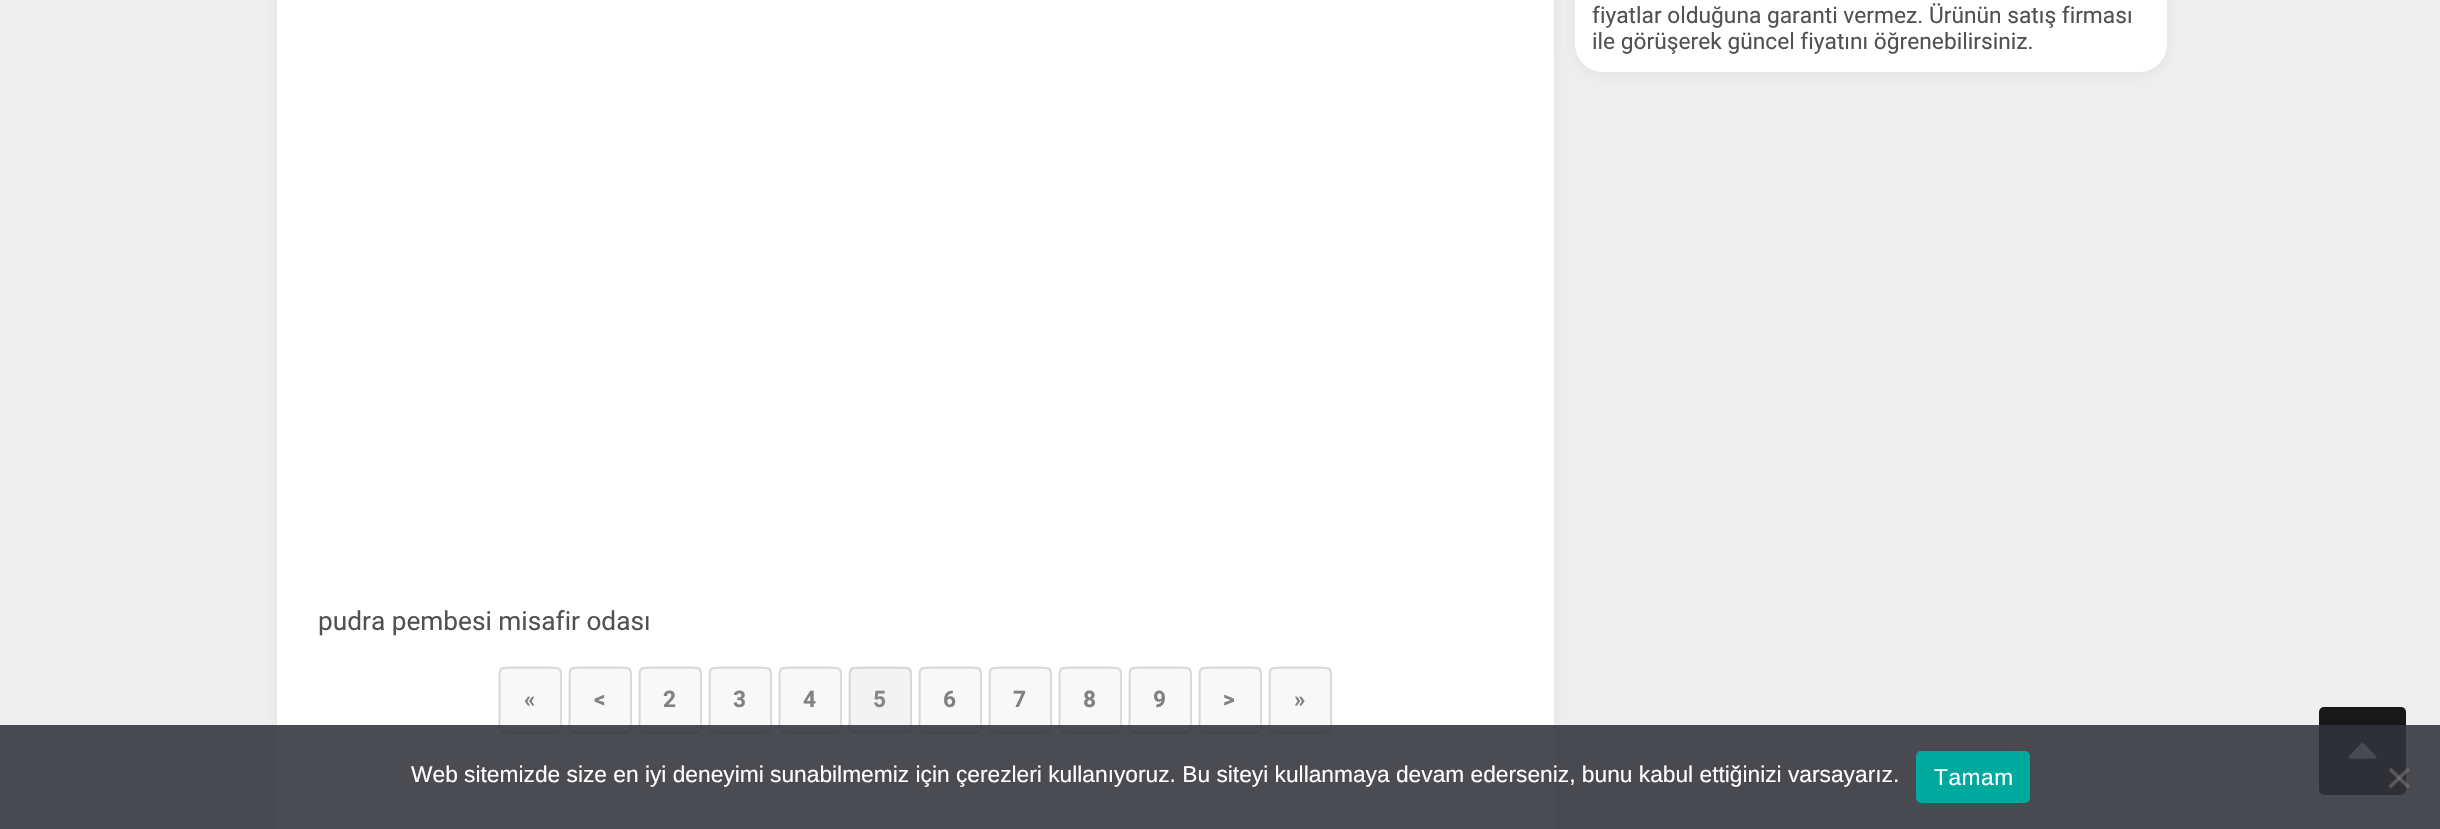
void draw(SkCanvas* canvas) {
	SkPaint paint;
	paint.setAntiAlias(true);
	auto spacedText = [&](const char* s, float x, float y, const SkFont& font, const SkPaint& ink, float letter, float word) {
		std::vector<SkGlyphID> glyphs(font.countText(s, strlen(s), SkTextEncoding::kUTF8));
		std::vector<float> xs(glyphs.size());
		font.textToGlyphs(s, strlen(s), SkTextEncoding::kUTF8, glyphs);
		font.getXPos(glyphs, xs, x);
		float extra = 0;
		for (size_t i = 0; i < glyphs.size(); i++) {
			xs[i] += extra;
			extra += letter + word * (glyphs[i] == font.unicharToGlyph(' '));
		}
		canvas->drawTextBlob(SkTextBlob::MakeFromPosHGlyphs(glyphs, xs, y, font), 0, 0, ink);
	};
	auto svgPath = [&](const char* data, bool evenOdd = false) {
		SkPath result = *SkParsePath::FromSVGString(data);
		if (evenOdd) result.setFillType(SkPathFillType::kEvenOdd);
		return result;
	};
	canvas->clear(0xffefefef);
	paint.setColor(0x0d000000);
	paint.setMaskFilter(SkMaskFilter::MakeBlur(kNormal_SkBlurStyle, 7));
	canvas->drawRoundRect(SkRect::MakeXYWH(277, -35, 1277, 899), 14, 14, paint);
	paint.setMaskFilter(nullptr);
	paint.setColor(0xffffffff);
	canvas->drawRect(SkRect::MakeXYWH(277, 0, 1277, 829), paint);
	paint.setColor(0x0d000000);
	paint.setMaskFilter(SkMaskFilter::MakeBlur(kNormal_SkBlurStyle, 7));
	canvas->drawRoundRect(SkRect::MakeXYWH(1575, -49, 592, 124), 28, 28, paint);
	paint.setMaskFilter(nullptr);
	paint.setColor(0xffffffff);
	canvas->drawPath(svgPath("M1575-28H2167V44C2167 59.5 2154.5 72 2139 72H1603C1587.5 72 1575 59.5 1575 44Z"), paint);
	SkFont f1(fontMgr->matchFamilyStyle("Roboto", SkFontStyle::Normal()), 22.75);
	f1.setSubpixel(true);
	paint.setColor(0xff515151);
	canvas->drawString("fiyatlar olduğuna garanti vermez. Ürünün satış firması", 1592, 23, f1, paint);
	canvas->drawString("ile görüşerek güncel fiyatını öğrenebilirsiniz.", 1592, 49, f1, paint);
	SkFont f2(fontMgr->matchFamilyStyle("Roboto", SkFontStyle::Normal()), 26.25);
	f2.setSubpixel(true);
	canvas->drawString("pudra pembesi misafir odası", 318, 630, f2, paint);
	paint.setColor(0xffececec);
	canvas->drawRoundRect(SkRect::MakeXYWH(499, 667, 63, 66), 5, 5, paint);
	paint.setColor(0xffe7e7e7);
	canvas->drawPath(svgPath("M505 669C503 669 501 671 501 673V729C501 730 503 732 505 732H556C558 732 560 730 560 728V673C560 671 558 669 556 669Z"), paint);
	paint.setColor(0xfff8f8f8);
	canvas->drawPath(svgPath("M505 669C499 669 501 680 501 682V719C501 733 500 732 514 732H556C562 732 560 721 560 719V682C560 680 562 669 556 669Z"), paint);
	paint.setStroke(true);
	paint.setStrokeWidth(1.8);
	paint.setColor(0xffcccccc);
	canvas->drawPath(svgPath("M559.5 731C559 732 557.5 732.5 556.5 732.5H504C503 732.5 501.5 732 501 731"), paint);
	paint.setColor(0xffd8d8d8);
	canvas->drawPath(svgPath("M501 731C498 728.5 499.5 720.5 499.5 718.5V681.5C499.5 667 498.5 667.5 513 667.5H548C562 667.5 561 667 561 681.5V718.5C561 720.5 562.5 728.5 559.5 731"), paint);
	SkFont f3(fontMgr->matchFamilyStyle("Roboto", SkFontStyle::Bold()), 22.75);
	f3.setSubpixel(true);
	paint.setStroke(false);
	paint.setColor(0xff818181);
	canvas->drawString("«", 524, 707, f3, paint);
	paint.setColor(0xffececec);
	canvas->drawRoundRect(SkRect::MakeXYWH(569, 667, 63, 66), 5, 5, paint);
	paint.setColor(0xffe7e7e7);
	canvas->drawPath(svgPath("M575 669C573 669 571 671 571 673V729C571 730 573 732 575 732H626C628 732 630 730 630 728V673C630 671 628 669 626 669Z"), paint);
	paint.setColor(0xfff8f8f8);
	canvas->drawPath(svgPath("M575 669C569 669 571 680 571 682V719C571 733 570 732 584 732H626C632 732 630 721 630 719V682C630 680 632 669 626 669Z"), paint);
	paint.setStroke(true);
	paint.setColor(0xffcccccc);
	canvas->drawPath(svgPath("M629.5 731C629 732 627.5 732.5 626.5 732.5H574C573 732.5 571.5 732 571 731"), paint);
	paint.setColor(0xffd8d8d8);
	canvas->drawPath(svgPath("M571 731C568 728.5 569.5 720.5 569.5 718.5V681.5C569.5 667 568.5 667.5 583 667.5H618C632 667.5 631 667 631 681.5V718.5C631 720.5 632.5 728.5 629.5 731"), paint);
	paint.setStroke(false);
	paint.setColor(0xff818181);
	canvas->drawString("<", 594, 707, f3, paint);
	paint.setColor(0xffececec);
	canvas->drawRoundRect(SkRect::MakeXYWH(639, 667, 63, 66), 5, 5, paint);
	paint.setColor(0xffe7e7e7);
	canvas->drawPath(svgPath("M645 669C643 669 641 671 641 673V729C641 730 643 732 645 732H696C698 732 700 730 700 728V673C700 671 698 669 696 669Z"), paint);
	paint.setColor(0xfff8f8f8);
	canvas->drawPath(svgPath("M645 669C639 669 641 680 641 682V719C641 733 640 732 654 732H696C702 732 700 721 700 719V682C700 680 702 669 696 669Z"), paint);
	paint.setStroke(true);
	paint.setColor(0xffcccccc);
	canvas->drawPath(svgPath("M699.5 731C699 732 697.5 732.5 696.5 732.5H644C643 732.5 641.5 732 641 731"), paint);
	paint.setColor(0xffd8d8d8);
	canvas->drawPath(svgPath("M641 731C638 728.5 639.5 720.5 639.5 718.5V681.5C639.5 667 638.5 667.5 653 667.5H688C702 667.5 701 667 701 681.5V718.5C701 720.5 702.5 728.5 699.5 731"), paint);
	paint.setStroke(false);
	paint.setColor(0xff818181);
	canvas->drawString("2", 663, 707, f3, paint);
	paint.setColor(0xffececec);
	canvas->drawRoundRect(SkRect::MakeXYWH(709, 667, 63, 66), 5, 5, paint);
	paint.setColor(0xffe7e7e7);
	canvas->drawPath(svgPath("M715 669C713 669 711 671 711 673V729C711 730 713 732 715 732H766C768 732 770 730 770 728V673C770 671 768 669 766 669Z"), paint);
	paint.setColor(0xfff8f8f8);
	canvas->drawPath(svgPath("M715 669C709 669 711 680 711 682V719C711 733 710 732 724 732H766C772 732 770 721 770 719V682C770 680 772 669 766 669Z"), paint);
	paint.setStroke(true);
	paint.setColor(0xffcccccc);
	canvas->drawPath(svgPath("M769.5 731C769 732 767.5 732.5 766.5 732.5H714C713 732.5 711.5 732 711 731"), paint);
	paint.setColor(0xffd8d8d8);
	canvas->drawPath(svgPath("M711 731C708 728.5 709.5 720.5 709.5 718.5V681.5C709.5 667 708.5 667.5 723 667.5H758C772 667.5 771 667 771 681.5V718.5C771 720.5 772.5 728.5 769.5 731"), paint);
	paint.setStroke(false);
	paint.setColor(0xff818181);
	canvas->drawString("3", 733, 707, f3, paint);
	paint.setColor(0xffececec);
	canvas->drawRoundRect(SkRect::MakeXYWH(779, 667, 63, 66), 5, 5, paint);
	paint.setColor(0xffe7e7e7);
	canvas->drawPath(svgPath("M785 669C783 669 781 671 781 673V729C781 730 783 732 785 732H836C838 732 840 730 840 728V673C840 671 838 669 836 669Z"), paint);
	paint.setColor(0xfff8f8f8);
	canvas->drawPath(svgPath("M785 669C779 669 781 680 781 682V719C781 733 780 732 794 732H836C842 732 840 721 840 719V682C840 680 842 669 836 669Z"), paint);
	paint.setStroke(true);
	paint.setColor(0xffcccccc);
	canvas->drawPath(svgPath("M839.5 731C839 732 837.5 732.5 836.5 732.5H784C783 732.5 781.5 732 781 731"), paint);
	paint.setColor(0xffd8d8d8);
	canvas->drawPath(svgPath("M781 731C778 728.5 779.5 720.5 779.5 718.5V681.5C779.5 667 778.5 667.5 793 667.5H828C842 667.5 841 667 841 681.5V718.5C841 720.5 842.5 728.5 839.5 731"), paint);
	paint.setStroke(false);
	paint.setColor(0xff818181);
	canvas->drawString("4", 803, 707, f3, paint);
	paint.setColor(0xffdddddd);
	canvas->drawRoundRect(SkRect::MakeXYWH(849, 667, 63, 66), 5, 5, paint);
	paint.setColor(0xffd9d9d9);
	canvas->drawPath(svgPath("M855 669C853 669 851 671 851 673V729C851 730 853 732 855 732H906C908 732 910 730 910 728V673C910 671 908 669 906 669Z"), paint);
	paint.setColor(0xfff3f3f3);
	canvas->drawPath(svgPath("M855 669C849 669 851 680 851 682V719C851 733 850 732 864 732H906C912 732 910 721 910 719V682C910 680 912 669 906 669Z"), paint);
	paint.setStroke(true);
	paint.setColor(0xffcccccc);
	canvas->drawPath(svgPath("M909.5 731C909 732 907.5 732.5 906.5 732.5H854C853 732.5 851.5 732 851 731"), paint);
	paint.setColor(0xffd8d8d8);
	canvas->drawPath(svgPath("M851 731C848 728.5 849.5 720.5 849.5 718.5V681.5C849.5 667 848.5 667.5 863 667.5H898C912 667.5 911 667 911 681.5V718.5C911 720.5 912.5 728.5 909.5 731"), paint);
	paint.setStroke(false);
	paint.setColor(0xff888888);
	canvas->drawString("5", 873, 707, f3, paint);
	paint.setColor(0xffececec);
	canvas->drawRoundRect(SkRect::MakeXYWH(919, 667, 63, 66), 5, 5, paint);
	paint.setColor(0xffe7e7e7);
	canvas->drawPath(svgPath("M925 669C923 669 921 671 921 673V729C921 730 923 732 925 732H976C978 732 980 730 980 728V673C980 671 978 669 976 669Z"), paint);
	paint.setColor(0xfff8f8f8);
	canvas->drawPath(svgPath("M925 669C919 669 921 680 921 682V719C921 733 920 732 934 732H976C982 732 980 721 980 719V682C980 680 982 669 976 669Z"), paint);
	paint.setStroke(true);
	paint.setColor(0xffcccccc);
	canvas->drawPath(svgPath("M979.5 731C979 732 977.5 732.5 976.5 732.5H924C923 732.5 921.5 732 921 731"), paint);
	paint.setColor(0xffd8d8d8);
	canvas->drawPath(svgPath("M921 731C918 728.5 919.5 720.5 919.5 718.5V681.5C919.5 667 918.5 667.5 933 667.5H968C982 667.5 981 667 981 681.5V718.5C981 720.5 982.5 728.5 979.5 731"), paint);
	paint.setStroke(false);
	paint.setColor(0xff818181);
	canvas->drawString("6", 943, 707, f3, paint);
	paint.setColor(0xffececec);
	canvas->drawRoundRect(SkRect::MakeXYWH(989, 667, 63, 66), 5, 5, paint);
	paint.setColor(0xffe7e7e7);
	canvas->drawPath(svgPath("M995 669C993 669 991 671 991 673V729C991 730 993 732 995 732H1046C1048 732 1050 730 1050 728V673C1050 671 1048 669 1046 669Z"), paint);
	paint.setColor(0xfff8f8f8);
	canvas->drawPath(svgPath("M995 669C989 669 991 680 991 682V719C991 733 990 732 1004 732H1046C1052 732 1050 721 1050 719V682C1050 680 1052 669 1046 669Z"), paint);
	paint.setStroke(true);
	paint.setColor(0xffcccccc);
	canvas->drawPath(svgPath("M1049.5 731C1049 732 1047.5 732.5 1046.5 732.5H994C993 732.5 991.5 732 991 731"), paint);
	paint.setColor(0xffd8d8d8);
	canvas->drawPath(svgPath("M991 731C988 728.5 989.5 720.5 989.5 718.5V681.5C989.5 667 988.5 667.5 1003 667.5H1038C1052 667.5 1051 667 1051 681.5V718.5C1051 720.5 1052.5 728.5 1049.5 731"), paint);
	paint.setStroke(false);
	paint.setColor(0xff818181);
	canvas->drawString("7", 1013, 707, f3, paint);
	paint.setColor(0xffececec);
	canvas->drawRoundRect(SkRect::MakeXYWH(1059, 667, 63, 66), 5, 5, paint);
	paint.setColor(0xffe7e7e7);
	canvas->drawPath(svgPath("M1065 669C1063 669 1061 671 1061 673V729C1061 730 1063 732 1065 732H1116C1118 732 1120 730 1120 728V673C1120 671 1118 669 1116 669Z"), paint);
	paint.setColor(0xfff8f8f8);
	canvas->drawPath(svgPath("M1065 669C1059 669 1061 680 1061 682V719C1061 733 1060 732 1074 732H1116C1122 732 1120 721 1120 719V682C1120 680 1122 669 1116 669Z"), paint);
	paint.setStroke(true);
	paint.setColor(0xffcccccc);
	canvas->drawPath(svgPath("M1119.5 731C1119 732 1117.5 732.5 1116.5 732.5H1064C1063 732.5 1061.5 732 1061 731"), paint);
	paint.setColor(0xffd8d8d8);
	canvas->drawPath(svgPath("M1061 731C1058 728.5 1059.5 720.5 1059.5 718.5V681.5C1059.5 667 1058.5 667.5 1073 667.5H1108C1122 667.5 1121 667 1121 681.5V718.5C1121 720.5 1122.5 728.5 1119.5 731"), paint);
	paint.setStroke(false);
	paint.setColor(0xff818181);
	canvas->drawString("8", 1083, 707, f3, paint);
	paint.setColor(0xffececec);
	canvas->drawRoundRect(SkRect::MakeXYWH(1129, 667, 63, 66), 5, 5, paint);
	paint.setColor(0xffe7e7e7);
	canvas->drawPath(svgPath("M1135 669C1133 669 1131 671 1131 673V729C1131 730 1133 732 1135 732H1186C1188 732 1190 730 1190 728V673C1190 671 1188 669 1186 669Z"), paint);
	paint.setColor(0xfff8f8f8);
	canvas->drawPath(svgPath("M1135 669C1129 669 1131 680 1131 682V719C1131 733 1130 732 1144 732H1186C1192 732 1190 721 1190 719V682C1190 680 1192 669 1186 669Z"), paint);
	paint.setStroke(true);
	paint.setColor(0xffcccccc);
	canvas->drawPath(svgPath("M1189.5 731C1189 732 1187.5 732.5 1186.5 732.5H1134C1133 732.5 1131.5 732 1131 731"), paint);
	paint.setColor(0xffd8d8d8);
	canvas->drawPath(svgPath("M1131 731C1128 728.5 1129.5 720.5 1129.5 718.5V681.5C1129.5 667 1128.5 667.5 1143 667.5H1178C1192 667.5 1191 667 1191 681.5V718.5C1191 720.5 1192.5 728.5 1189.5 731"), paint);
	paint.setStroke(false);
	paint.setColor(0xff818181);
	canvas->drawString("9", 1153, 707, f3, paint);
	paint.setColor(0xffececec);
	canvas->drawRoundRect(SkRect::MakeXYWH(1199, 667, 63, 66), 5, 5, paint);
	paint.setColor(0xffe7e7e7);
	canvas->drawPath(svgPath("M1205 669C1203 669 1201 671 1201 673V729C1201 730 1203 732 1205 732H1256C1258 732 1260 730 1260 728V673C1260 671 1258 669 1256 669Z"), paint);
	paint.setColor(0xfff8f8f8);
	canvas->drawPath(svgPath("M1205 669C1199 669 1201 680 1201 682V719C1201 733 1200 732 1214 732H1256C1262 732 1260 721 1260 719V682C1260 680 1262 669 1256 669Z"), paint);
	paint.setStroke(true);
	paint.setColor(0xffcccccc);
	canvas->drawPath(svgPath("M1259.5 731C1259 732 1257.5 732.5 1256.5 732.5H1204C1203 732.5 1201.5 732 1201 731"), paint);
	paint.setColor(0xffd8d8d8);
	canvas->drawPath(svgPath("M1201 731C1198 728.5 1199.5 720.5 1199.5 718.5V681.5C1199.5 667 1198.5 667.5 1213 667.5H1248C1262 667.5 1261 667 1261 681.5V718.5C1261 720.5 1262.5 728.5 1259.5 731"), paint);
	paint.setStroke(false);
	paint.setColor(0xff818181);
	canvas->drawString(">", 1223, 707, f3, paint);
	paint.setColor(0xffececec);
	canvas->drawRoundRect(SkRect::MakeXYWH(1269, 667, 63, 66), 5, 5, paint);
	paint.setColor(0xffe7e7e7);
	canvas->drawPath(svgPath("M1275 669C1273 669 1271 671 1271 673V729C1271 730 1273 732 1275 732H1326C1328 732 1330 730 1330 728V673C1330 671 1328 669 1326 669Z"), paint);
	paint.setColor(0xfff8f8f8);
	canvas->drawPath(svgPath("M1275 669C1269 669 1271 680 1271 682V719C1271 733 1270 732 1284 732H1326C1332 732 1330 721 1330 719V682C1330 680 1332 669 1326 669Z"), paint);
	paint.setStroke(true);
	paint.setColor(0xffcccccc);
	canvas->drawPath(svgPath("M1329.5 731C1329 732 1327.5 732.5 1326.5 732.5H1274C1273 732.5 1271.5 732 1271 731"), paint);
	paint.setColor(0xffd8d8d8);
	canvas->drawPath(svgPath("M1271 731C1268 728.5 1269.5 720.5 1269.5 718.5V681.5C1269.5 667 1268.5 667.5 1283 667.5H1318C1332 667.5 1331 667 1331 681.5V718.5C1331 720.5 1332.5 728.5 1329.5 731"), paint);
	paint.setStroke(false);
	paint.setColor(0xff818181);
	canvas->drawString("»", 1294, 707, f3, paint);
	paint.setColor(0xff181818);
	canvas->drawRoundRect(SkRect::MakeXYWH(2319, 707, 87, 88), 5, 5, paint);
	canvas->drawImageRect(SkImages::DeferredFromEncodedData(SkData::MakeFromFileName("img1.png")), SkRect::MakeXYWH(2348, 742, 29, 17), SkSamplingOptions());
	paint.setColor(0xe032323a);
	canvas->drawRect(SkRect::MakeXYWH(0, 725, 2440, 104), paint);
	SkFont f4(fontMgr->matchFamilyStyle("Liberation Sans", SkFontStyle::Normal()), 22.75);
	f4.setSubpixel(true);
	paint.setColor(0xffffffff);
	canvas->drawString("Web sitemizde size en iyi deneyimi sunabilmemiz için çerezleri kullanıyoruz. Bu siteyi kullanmaya devam ederseniz, bunu kabul ettiğinizi varsayarız.", 411, 782, f4, paint);
	paint.setColor(0xff00a99d);
	canvas->drawRoundRect(SkRect::MakeXYWH(1916, 751, 114, 52), 5, 5, paint);
	paint.setColor(0xffffffff);
	spacedText("Tamam", 1934, 785, f4, paint, 0.5, 0);
	paint.setColor(0x80808080);
	canvas->drawPath(svgPath("M2407.5 767.5L2410 770L2391 788.5L2388.5 786Z"), paint);
	canvas->drawPath(svgPath("M2388.5 770L2391 767.5L2410 786L2407.5 788.5Z"), paint);
}
